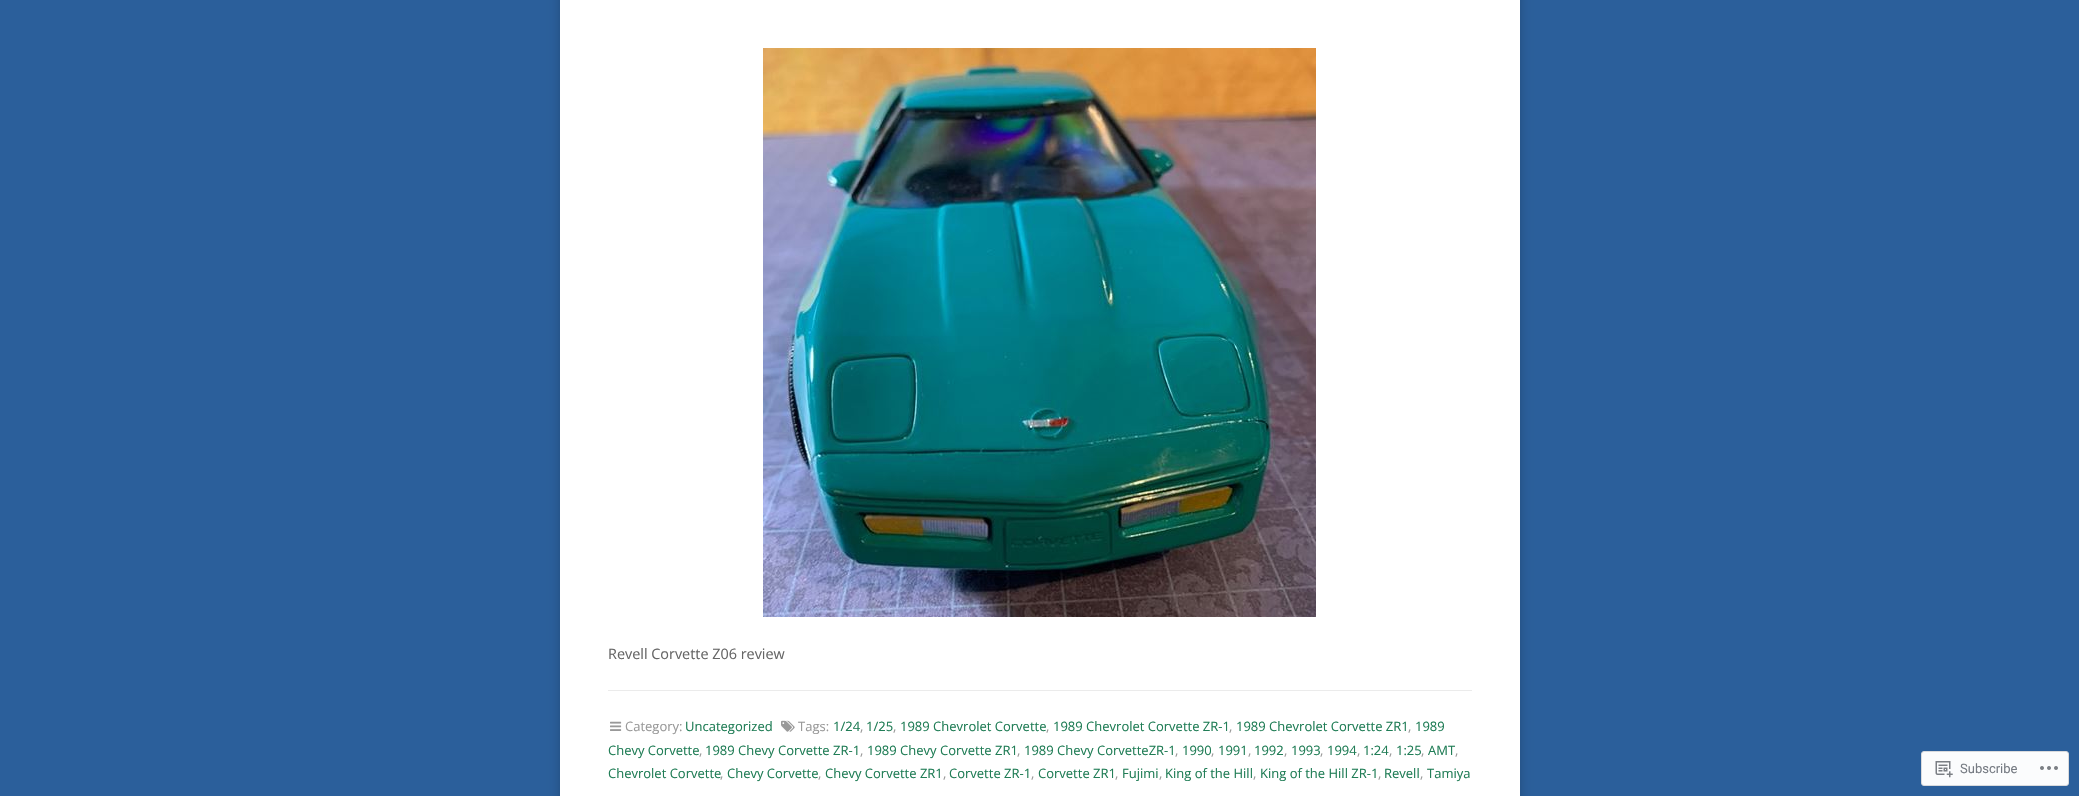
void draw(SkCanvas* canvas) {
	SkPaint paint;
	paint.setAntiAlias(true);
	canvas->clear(0xff2b5f9b);
	paint.setColor(0x33000000);
	paint.setMaskFilter(SkMaskFilter::MakeBlur(kNormal_SkBlurStyle, 6));
	canvas->drawRoundRect(SkRect::MakeXYWH(560, -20, 960, 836), 2, 2, paint);
	paint.setMaskFilter(nullptr);
	paint.setColor(0xffffffff);
	canvas->drawRect(SkRect::MakeXYWH(560, 0, 960, 796), paint);
	canvas->drawImageRect(SkImages::DeferredFromEncodedData(SkData::MakeFromFileName("img1.png")), SkRect::MakeXYWH(763, 48, 553, 569), SkSamplingOptions());
	SkFont f1(fontMgr->matchFamilyStyle("Open Sans", SkFontStyle::Normal()), 14.4);
	f1.setSubpixel(true);
	paint.setColor(0xff666666);
	canvas->drawString("Revell Corvette Z06 review", 608, 659, f1, paint);
	paint.setColor(0xffebebeb);
	canvas->drawRect(SkRect::MakeXYWH(608, 690, 864, 1), paint);
	canvas->drawImageRect(SkImages::DeferredFromEncodedData(SkData::MakeFromFileName("img2.png")), SkRect::MakeXYWH(610, 721, 12, 10), SkSamplingOptions());
	SkFont f2(fontMgr->matchFamilyStyle("Open Sans", SkFontStyle::Normal()), 13);
	f2.setSubpixel(true);
	paint.setColor(0xff999999);
	canvas->drawString("Category:", 625, 731, f2, paint);
	paint.setColor(0xff207d56);
	canvas->drawString("Uncategorized", 685, 731, f2, paint);
	canvas->drawImageRect(SkImages::DeferredFromEncodedData(SkData::MakeFromFileName("img3.png")), SkRect::MakeXYWH(781, 720, 14, 12), SkSamplingOptions());
	paint.setColor(0xff999999);
	canvas->drawString("Tags:", 798, 731, f2, paint);
	paint.setColor(0xff207d56);
	canvas->drawString("1/24", 833, 731, f2, paint);
	paint.setColor(0xff999999);
	canvas->drawString(",", 860, 731, f2, paint);
	paint.setColor(0xff207d56);
	canvas->drawString("1/25", 866, 731, f2, paint);
	paint.setColor(0xff999999);
	canvas->drawString(",", 893, 731, f2, paint);
	paint.setColor(0xff207d56);
	canvas->drawString("1989 Chevrolet Corvette", 900, 731, f2, paint);
	paint.setColor(0xff999999);
	canvas->drawString(",", 1046, 731, f2, paint);
	paint.setColor(0xff207d56);
	canvas->drawString("1989 Chevrolet Corvette ZR-1", 1053, 731, f2, paint);
	paint.setColor(0xff999999);
	canvas->drawString(",", 1229, 731, f2, paint);
	paint.setColor(0xff207d56);
	canvas->drawString("1989 Chevrolet Corvette ZR1", 1236, 731, f2, paint);
	paint.setColor(0xff999999);
	canvas->drawString(",", 1408, 731, f2, paint);
	paint.setColor(0xff207d56);
	canvas->drawString("1989", 1415, 731, f2, paint);
	canvas->drawString("Chevy Corvette", 608, 755, f2, paint);
	paint.setColor(0xff999999);
	canvas->drawString(",", 699, 755, f2, paint);
	paint.setColor(0xff207d56);
	canvas->drawString("1989 Chevy Corvette ZR-1", 705, 755, f2, paint);
	paint.setColor(0xff999999);
	canvas->drawString(",", 860, 755, f2, paint);
	paint.setColor(0xff207d56);
	canvas->drawString("1989 Chevy Corvette ZR1", 867, 755, f2, paint);
	paint.setColor(0xff999999);
	canvas->drawString(",", 1017, 755, f2, paint);
	paint.setColor(0xff207d56);
	canvas->drawString("1989 Chevy CorvetteZR-1", 1024, 755, f2, paint);
	paint.setColor(0xff999999);
	canvas->drawString(",", 1175, 755, f2, paint);
	paint.setColor(0xff207d56);
	canvas->drawString("1990", 1182, 755, f2, paint);
	paint.setColor(0xff999999);
	canvas->drawString(",", 1211, 755, f2, paint);
	paint.setColor(0xff207d56);
	canvas->drawString("1991", 1218, 755, f2, paint);
	paint.setColor(0xff999999);
	canvas->drawString(",", 1248, 755, f2, paint);
	paint.setColor(0xff207d56);
	canvas->drawString("1992", 1254, 755, f2, paint);
	paint.setColor(0xff999999);
	canvas->drawString(",", 1284, 755, f2, paint);
	paint.setColor(0xff207d56);
	canvas->drawString("1993", 1291, 755, f2, paint);
	paint.setColor(0xff999999);
	canvas->drawString(",", 1320, 755, f2, paint);
	paint.setColor(0xff207d56);
	canvas->drawString("1994", 1327, 755, f2, paint);
	paint.setColor(0xff999999);
	canvas->drawString(",", 1357, 755, f2, paint);
	paint.setColor(0xff207d56);
	canvas->drawString("1:24", 1363, 755, f2, paint);
	paint.setColor(0xff999999);
	canvas->drawString(",", 1389, 755, f2, paint);
	paint.setColor(0xff207d56);
	canvas->drawString("1:25", 1396, 755, f2, paint);
	paint.setColor(0xff999999);
	canvas->drawString(",", 1421, 755, f2, paint);
	paint.setColor(0xff207d56);
	canvas->drawString("AMT", 1428, 755, f2, paint);
	paint.setColor(0xff999999);
	canvas->drawString(",", 1455, 755, f2, paint);
	paint.setColor(0xff207d56);
	canvas->drawString("Chevrolet Corvette", 608, 778, f2, paint);
	paint.setColor(0xff999999);
	canvas->drawString(",", 720, 778, f2, paint);
	paint.setColor(0xff207d56);
	canvas->drawString("Chevy Corvette", 727, 778, f2, paint);
	paint.setColor(0xff999999);
	canvas->drawString(",", 818, 778, f2, paint);
	paint.setColor(0xff207d56);
	canvas->drawString("Chevy Corvette ZR1", 825, 778, f2, paint);
	paint.setColor(0xff999999);
	canvas->drawString(",", 943, 778, f2, paint);
	paint.setColor(0xff207d56);
	canvas->drawString("Corvette ZR-1", 949, 778, f2, paint);
	paint.setColor(0xff999999);
	canvas->drawString(",", 1031, 778, f2, paint);
	paint.setColor(0xff207d56);
	canvas->drawString("Corvette ZR1", 1038, 778, f2, paint);
	paint.setColor(0xff999999);
	canvas->drawString(",", 1115, 778, f2, paint);
	paint.setColor(0xff207d56);
	canvas->drawString("Fujimi", 1122, 778, f2, paint);
	paint.setColor(0xff999999);
	canvas->drawString(",", 1159, 778, f2, paint);
	paint.setColor(0xff207d56);
	canvas->drawString("King of the Hill", 1165, 778, f2, paint);
	paint.setColor(0xff999999);
	canvas->drawString(",", 1253, 778, f2, paint);
	paint.setColor(0xff207d56);
	canvas->drawString("King of the Hill ZR-1", 1260, 778, f2, paint);
	paint.setColor(0xff999999);
	canvas->drawString(",", 1378, 778, f2, paint);
	paint.setColor(0xff207d56);
	canvas->drawString("Revell", 1384, 778, f2, paint);
	paint.setColor(0xff999999);
	canvas->drawString(",", 1420, 778, f2, paint);
	paint.setColor(0xff207d56);
	canvas->drawString("Tamiya", 1427, 778, f2, paint);
	paint.setColor(0xfffbfcfd);
	canvas->drawRoundRect(SkRect::MakeXYWH(1921.5, 751.5, 147, 34), 2.5, 2.5, paint);
	paint.setStroke(true);
	paint.setStrokeWidth(1);
	paint.setColor(0xffd8dadd);
	canvas->drawRoundRect(SkRect::MakeXYWH(1921.5, 751.5, 147, 34), 2.5, 2.5, paint);
	canvas->drawImageRect(SkImages::DeferredFromEncodedData(SkData::MakeFromFileName("img4.png")), SkRect::MakeXYWH(1935, 761, 18, 17), SkSamplingOptions());
	SkFont f3(fontMgr->matchFamilyStyle("Roboto", SkFontStyle::Normal()), 13);
	f3.setSubpixel(true);
	paint.setStroke(false);
	paint.setColor(0xff767b83);
	canvas->drawString("Subscribe", 1960, 773, f3, paint);
	canvas->drawImageRect(SkImages::DeferredFromEncodedData(SkData::MakeFromFileName("img5.png")), SkRect::MakeXYWH(2040, 766, 18, 4), SkSamplingOptions());
}
